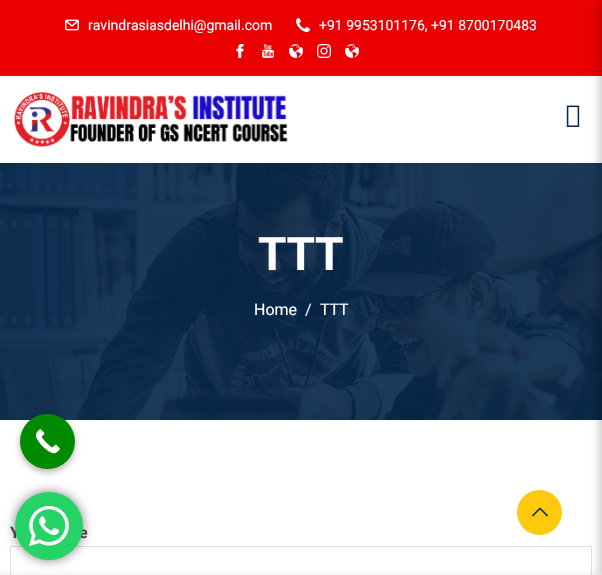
void draw(SkCanvas* canvas) {
	SkPaint paint;
	paint.setAntiAlias(true);
	canvas->clear(0xffffffff);
	paint.setColor(0xffea0000);
	canvas->drawRect(SkRect::MakeXYWH(0, 0, 602, 76), paint);
	canvas->drawImageRect(SkImages::DeferredFromEncodedData(SkData::MakeFromFileName("img1.png")), SkRect::MakeXYWH(65, 19, 14, 12), SkSamplingOptions());
	SkFont f1(fontMgr->matchFamilyStyle("Roboto", SkFontStyle::Normal()), 14);
	f1.setSubpixel(true);
	paint.setColor(0xffffffff);
	canvas->drawString("ravindrasiasdelhi@gmail.com", 88, 30, f1, paint);
	canvas->drawImageRect(SkImages::DeferredFromEncodedData(SkData::MakeFromFileName("img2.png")), SkRect::MakeXYWH(296, 18, 14, 14), SkSamplingOptions());
	canvas->drawString("+91 9953101176, +91 8700170483", 319, 30, f1, paint);
	canvas->drawImageRect(SkImages::DeferredFromEncodedData(SkData::MakeFromFileName("img3.png")), SkRect::MakeXYWH(236, 44, 8, 14), SkSamplingOptions());
	canvas->drawImageRect(SkImages::DeferredFromEncodedData(SkData::MakeFromFileName("img4.png")), SkRect::MakeXYWH(262, 44, 12, 14), SkSamplingOptions());
	canvas->drawImageRect(SkImages::DeferredFromEncodedData(SkData::MakeFromFileName("img5.png")), SkRect::MakeXYWH(289, 44, 14, 14), SkSamplingOptions());
	canvas->drawImageRect(SkImages::DeferredFromEncodedData(SkData::MakeFromFileName("img6.png")), SkRect::MakeXYWH(317, 44, 15, 14), SkSamplingOptions());
	canvas->drawImageRect(SkImages::DeferredFromEncodedData(SkData::MakeFromFileName("img5.png")), SkRect::MakeXYWH(345, 44, 14, 14), SkSamplingOptions());
	canvas->drawImageRect(SkImages::DeferredFromEncodedData(SkData::MakeFromFileName("img7.png")), SkRect::MakeXYWH(14, 92, 274, 55), SkSamplingOptions());
	canvas->drawImageRect(SkImages::DeferredFromEncodedData(SkData::MakeFromFileName("img8.png")), SkRect::MakeXYWH(566, 105, 14, 22), SkSamplingOptions());
	canvas->drawImageRect(SkImages::DeferredFromEncodedData(SkData::MakeFromFileName("img9.png")), SkRect::MakeXYWH(0, 163, 602, 257), SkSamplingOptions());
	SkFont f2(fontMgr->matchFamilyStyle("Roboto", SkFontStyle::Bold()), 46);
	f2.setSubpixel(true);
	canvas->drawString("TTT", 258, 270, f2, paint);
	SkFont f3(fontMgr->matchFamilyStyle("Roboto", SkFontStyle::Normal()), 16);
	f3.setSubpixel(true);
	canvas->drawString("Home", 254, 315, f3, paint);
	paint.setColor(0xffedf0f2);
	canvas->drawString("/", 305, 315, f3, paint);
	paint.setColor(0xffffffff);
	canvas->drawString("TTT", 320, 315, f3, paint);
	SkFont f4(fontMgr->matchFamilyStyle("Roboto", SkFontStyle::Bold()), 16);
	f4.setSubpixel(true);
	paint.setColor(0xff505050);
	canvas->drawString("Y", 10, 538, f4, paint);
	canvas->drawString("e", 79, 538, f4, paint);
	paint.setStroke(true);
	paint.setStrokeWidth(1);
	paint.setColor(0xffe0e0e0);
	canvas->drawRect(SkRect::MakeXYWH(10.5, 546.5, 581, 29), paint);
	paint.setStroke(false);
	paint.setColor(0x33000000);
	paint.setMaskFilter(SkMaskFilter::MakeBlur(kNormal_SkBlurStyle, 4.5));
	canvas->drawRect(SkRect::MakeXYWH(599, 3, 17, 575), paint);
	paint.setMaskFilter(nullptr);
	paint.setColor(0x4d000000);
	paint.setMaskFilter(SkMaskFilter::MakeBlur(kNormal_SkBlurStyle, 3));
	canvas->drawRoundRect(SkRect::MakeXYWH(20, 417, 55, 55), 27.5, 27.5, paint);
	paint.setMaskFilter(nullptr);
	paint.setColor(0xff008a00);
	canvas->drawCircle(47.5, 441.5, 27.5, paint);
	canvas->drawImageRect(SkImages::DeferredFromEncodedData(SkData::MakeFromFileName("img10.png")), SkRect::MakeXYWH(35, 429, 25, 25), SkSamplingOptions());
	paint.setColor(0x80000000);
	paint.setMaskFilter(SkMaskFilter::MakeBlur(kNormal_SkBlurStyle, 5.5));
	canvas->drawRoundRect(SkRect::MakeXYWH(15, 492, 68, 68), 34, 34, paint);
	paint.setMaskFilter(nullptr);
	paint.setColor(0xff25d366);
	canvas->drawCircle(49, 526, 34, paint);
	canvas->drawImageRect(SkImages::DeferredFromEncodedData(SkData::MakeFromFileName("img11.png")), SkRect::MakeXYWH(29, 506, 40, 40), SkSamplingOptions());
	paint.setColor(0xffffc90d);
	canvas->drawCircle(539.5, 512.5, 22.5, paint);
	canvas->drawImageRect(SkImages::DeferredFromEncodedData(SkData::MakeFromFileName("img12.png")), SkRect::MakeXYWH(532, 507, 16, 10), SkSamplingOptions());
	paint.setColor(0x33000000);
	paint.setMaskFilter(SkMaskFilter::MakeBlur(kNormal_SkBlurStyle, 4.5));
	canvas->drawRect(SkRect::MakeXYWH(-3, 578, 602, 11), paint);
	paint.setMaskFilter(nullptr);
}
